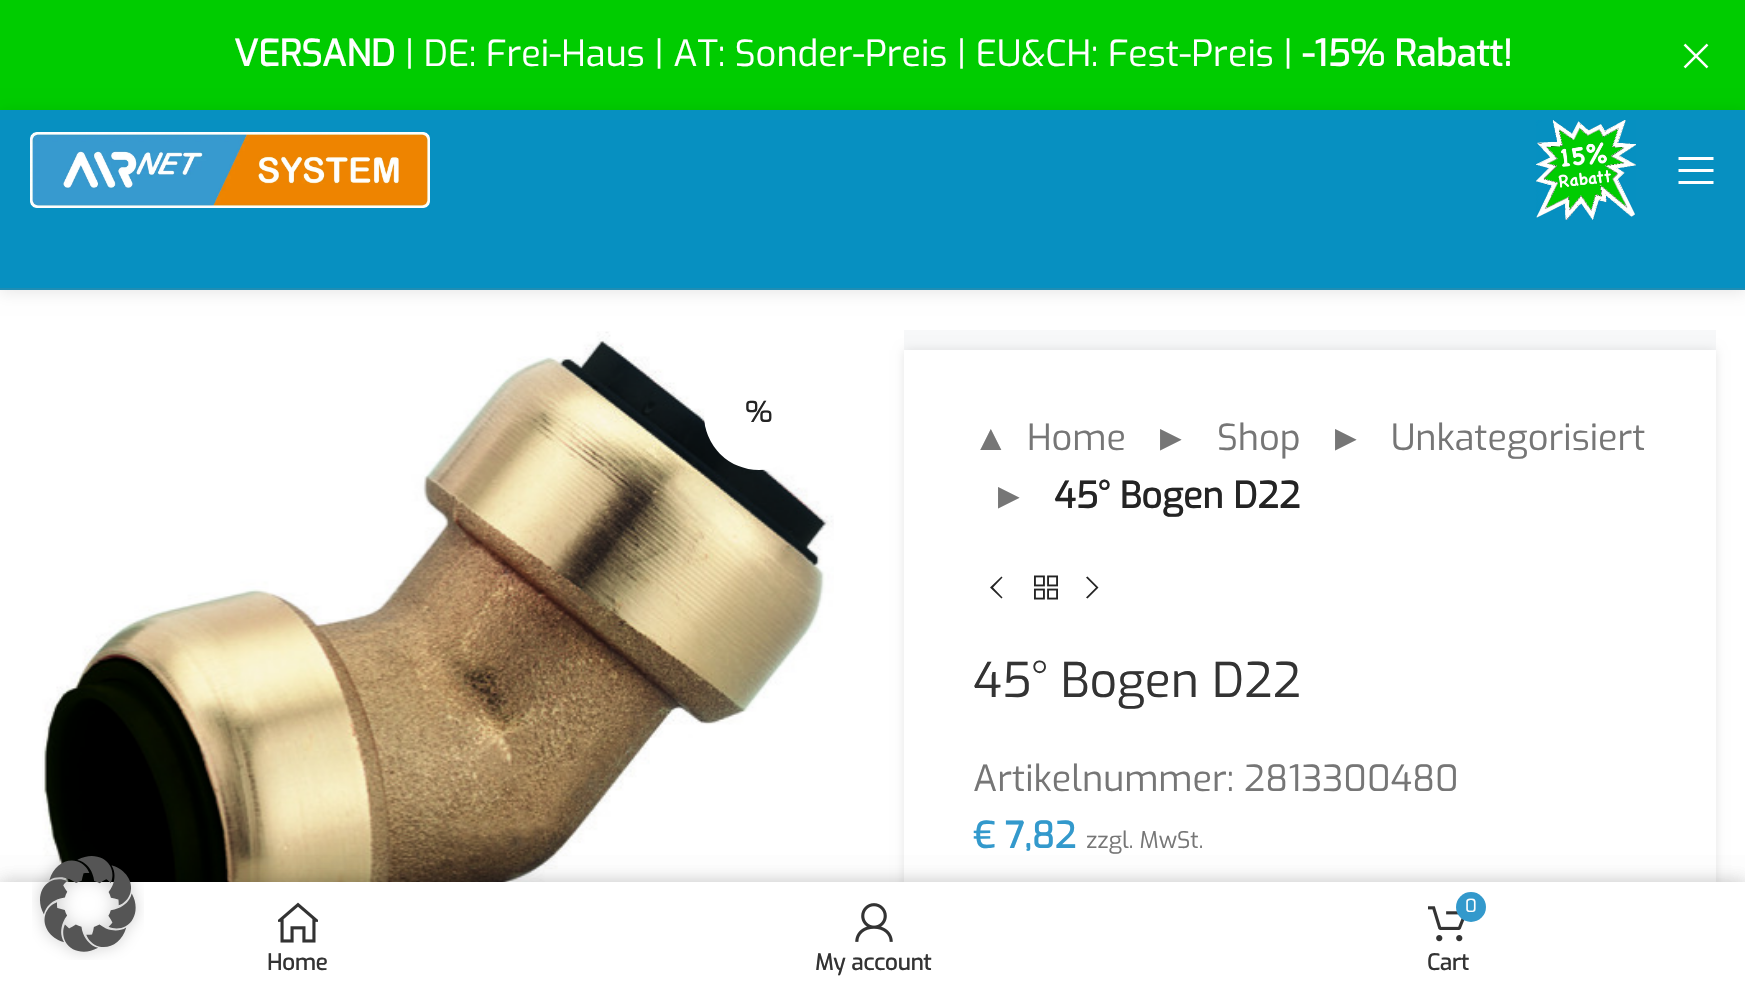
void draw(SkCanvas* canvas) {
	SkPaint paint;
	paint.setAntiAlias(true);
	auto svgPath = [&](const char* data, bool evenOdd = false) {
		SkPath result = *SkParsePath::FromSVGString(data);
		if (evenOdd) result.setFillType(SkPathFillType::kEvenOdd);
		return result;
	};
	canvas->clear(0xffffffff);
	paint.setColor(0xff00cc00);
	canvas->drawRect(SkRect::MakeXYWH(0, 0, 1745, 110), paint);
	SkFont f1(fontMgr->matchFamilyStyle("Exo", SkFontStyle::Bold()), 36);
	f1.setSubpixel(true);
	paint.setColor(0xffffffff);
	canvas->drawString("VERSAND", 234, 66, f1, paint);
	SkFont f2(fontMgr->matchFamilyStyle("Exo", SkFontStyle::Normal()), 36);
	f2.setSubpixel(true);
	canvas->drawString("| DE: Frei-Haus | AT: Sonder-Preis | EU&CH: Fest-Preis |", 405, 66, f2, paint);
	canvas->drawString("-15% Rabatt!", 1302, 66, f1, paint);
	canvas->drawImageRect(SkImages::DeferredFromEncodedData(SkData::MakeFromFileName("img1.png")), SkRect::MakeXYWH(1683, 43, 26, 26), SkSamplingOptions());
	paint.setColor(0xff0790c1);
	canvas->drawRect(SkRect::MakeXYWH(0, 110, 1745, 178), paint);
	canvas->save();
	canvas->clipPath(svgPath("M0 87H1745V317H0ZM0 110H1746V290H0Z", true), true);
	paint.setColor(0x1a000000);
	paint.setMaskFilter(SkMaskFilter::MakeBlur(kNormal_SkBlurStyle, 8));
	canvas->drawRect(SkRect::MakeXYWH(0, 112, 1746, 180), paint);
	paint.setMaskFilter(nullptr);
	canvas->restore();
	paint.setColor(0xff1f8db4);
	canvas->drawRect(SkRect::MakeXYWH(0, 288, 1745, 2), paint);
	canvas->drawImageRect(SkImages::DeferredFromEncodedData(SkData::MakeFromFileName("img2.png")), SkRect::MakeXYWH(30, 132, 400, 76), SkSamplingOptions());
	canvas->drawImageRect(SkImages::DeferredFromEncodedData(SkData::MakeFromFileName("img3.png")), SkRect::MakeXYWH(1536, 120, 100, 100), SkSamplingOptions());
	paint.setColor(0xffffffff);
	canvas->drawPath(svgPath("M1678.5 160H1713.5V157H1678.5ZM1678.5 172H1713.5V169H1678.5ZM1678.5 184H1713.5V181H1678.5Z"), paint);
	canvas->drawImageRect(SkImages::DeferredFromEncodedData(SkData::MakeFromFileName("img4.png")), SkRect::MakeXYWH(42, 331, 792, 551), SkSamplingOptions());
	canvas->drawCircle(759, 415, 55, paint);
	SkFont f3(fontMgr->matchFamilyStyle("Exo", SkFontStyle::Bold()), 28);
	f3.setSubpixel(true);
	paint.setColor(0xff242424);
	canvas->drawString("%", 745, 422, f3, paint);
	paint.setColor(0xfff7f8f9);
	canvas->drawRect(SkRect::MakeXYWH(904, 330, 812, 20), paint);
	paint.setColor(0x1a000000);
	paint.setMaskFilter(SkMaskFilter::MakeBlur(kNormal_SkBlurStyle, 5));
	canvas->drawRect(SkRect::MakeXYWH(904, 350, 812, 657), paint);
	paint.setMaskFilter(nullptr);
	paint.setColor(0xffffffff);
	canvas->drawRect(SkRect::MakeXYWH(904, 350, 812, 532), paint);
	SkFont f4(fontMgr->matchFamilyStyle("Liberation Sans", SkFontStyle::Normal()), 36);
	f4.setSubpixel(true);
	paint.setColor(0xff767676);
	canvas->drawString("▲", 973, 450, f4, paint);
	canvas->drawString("Home", 1027, 450, f2, paint);
	canvas->drawString("►", 1153, 450, f4, paint);
	canvas->drawString("Shop", 1217, 450, f2, paint);
	canvas->drawString("►", 1328, 450, f4, paint);
	canvas->drawString("Unkategorisiert", 1391, 450, f2, paint);
	canvas->drawString("►", 991, 508, f4, paint);
	paint.setColor(0xff242424);
	canvas->drawString("45° Bogen D22", 1054, 508, f1, paint);
	canvas->drawPath(svgPath("M1002.5 577.5L1001.5 576.5L990 587.5L1001.5 598.5L1002.5 597.5L993 587.5Z"), paint);
	canvas->drawImageRect(SkImages::DeferredFromEncodedData(SkData::MakeFromFileName("img5.png")), SkRect::MakeXYWH(1034, 575, 24, 25), SkSamplingOptions());
	canvas->drawPath(svgPath("M1086 577.5L1096 587.5L1086 597.5L1087.5 598.5L1098.5 587.5L1087.5 576.5Z"), paint);
	SkFont f5(fontMgr->matchFamilyStyle("Exo", SkFontStyle::Normal()), 48);
	f5.setSubpixel(true);
	paint.setColor(0xff333333);
	canvas->drawString("45° Bogen D22", 973, 697, f5, paint);
	paint.setColor(0xff767676);
	canvas->drawString("Artikelnummer: 2813300480", 973, 791, f2, paint);
	paint.setColor(0xff3399cc);
	canvas->drawString("€ 7,82", 973, 848, f1, paint);
	SkFont f6(fontMgr->matchFamilyStyle("Exo", SkFontStyle::Normal()), 23);
	f6.setSubpixel(true);
	paint.setColor(0xff767676);
	canvas->drawString("zzgl. MwSt.", 1086, 848, f6, paint);
	paint.setColor(0x1f000000);
	paint.setMaskFilter(SkMaskFilter::MakeBlur(kNormal_SkBlurStyle, 9));
	canvas->drawRect(SkRect::MakeXYWH(0, 882, 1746, 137), paint);
	paint.setMaskFilter(nullptr);
	paint.setMaskFilter(SkMaskFilter::MakeBlur(kNormal_SkBlurStyle, 9));
	canvas->drawRect(SkRect::MakeXYWH(0, 882, 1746, 110), paint);
	paint.setMaskFilter(nullptr);
	paint.setColor(0xffffffff);
	canvas->drawRect(SkRect::MakeXYWH(0, 882, 1745, 110), paint);
	canvas->drawImageRect(SkImages::DeferredFromEncodedData(SkData::MakeFromFileName("img6.png")), SkRect::MakeXYWH(32, 855, 112, 105), SkSamplingOptions());
	canvas->drawImageRect(SkImages::DeferredFromEncodedData(SkData::MakeFromFileName("img7.png")), SkRect::MakeXYWH(278, 902, 40, 41), SkSamplingOptions());
	SkFont f7(fontMgr->matchFamilyStyle("Exo", SkFontStyle::Bold()), 22);
	f7.setSubpixel(true);
	paint.setColor(0xff333333);
	canvas->drawString("Home", 267, 970, f7, paint);
	canvas->drawImageRect(SkImages::DeferredFromEncodedData(SkData::MakeFromFileName("img8.png")), SkRect::MakeXYWH(855, 903, 38, 39), SkSamplingOptions());
	canvas->drawString("My account", 815, 970, f7, paint);
	canvas->drawImageRect(SkImages::DeferredFromEncodedData(SkData::MakeFromFileName("img9.png")), SkRect::MakeXYWH(1428, 906, 37, 36), SkSamplingOptions());
	paint.setColor(0xff3399cc);
	canvas->drawCircle(1471, 907, 15, paint);
	SkFont f8(fontMgr->matchFamilyStyle("Exo", SkFontStyle::Normal()), 18);
	f8.setSubpixel(true);
	paint.setColor(0xffffffff);
	canvas->drawString("0", 1465, 912, f8, paint);
	paint.setColor(0xff333333);
	canvas->drawString("Cart", 1427, 970, f7, paint);
}
